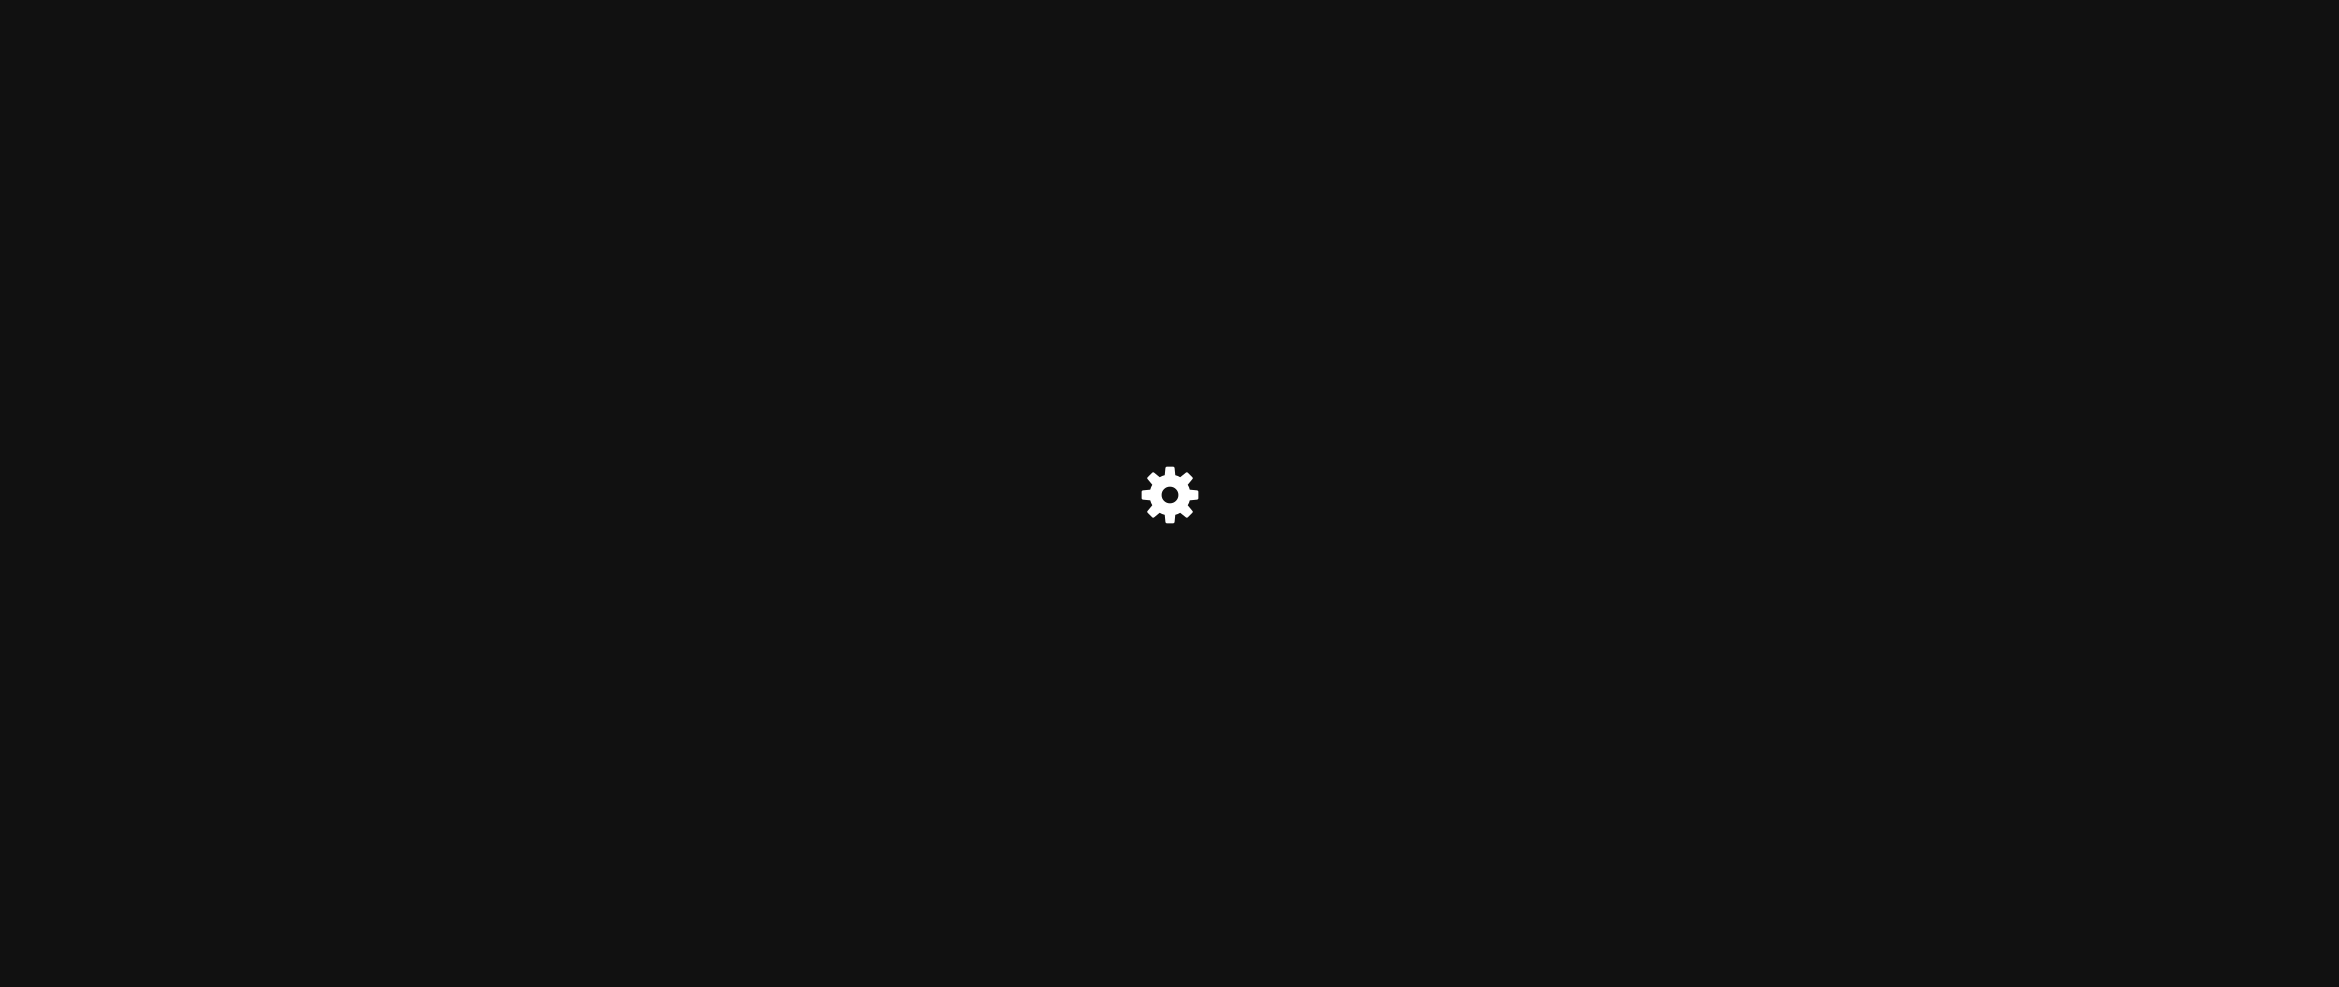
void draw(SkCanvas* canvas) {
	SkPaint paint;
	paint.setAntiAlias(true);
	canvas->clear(0xff111111);
	canvas->drawImageRect(SkImages::DeferredFromEncodedData(SkData::MakeFromFileName("img1.png")), SkRect::MakeXYWH(1141, 466, 58, 58), SkSamplingOptions());
}
